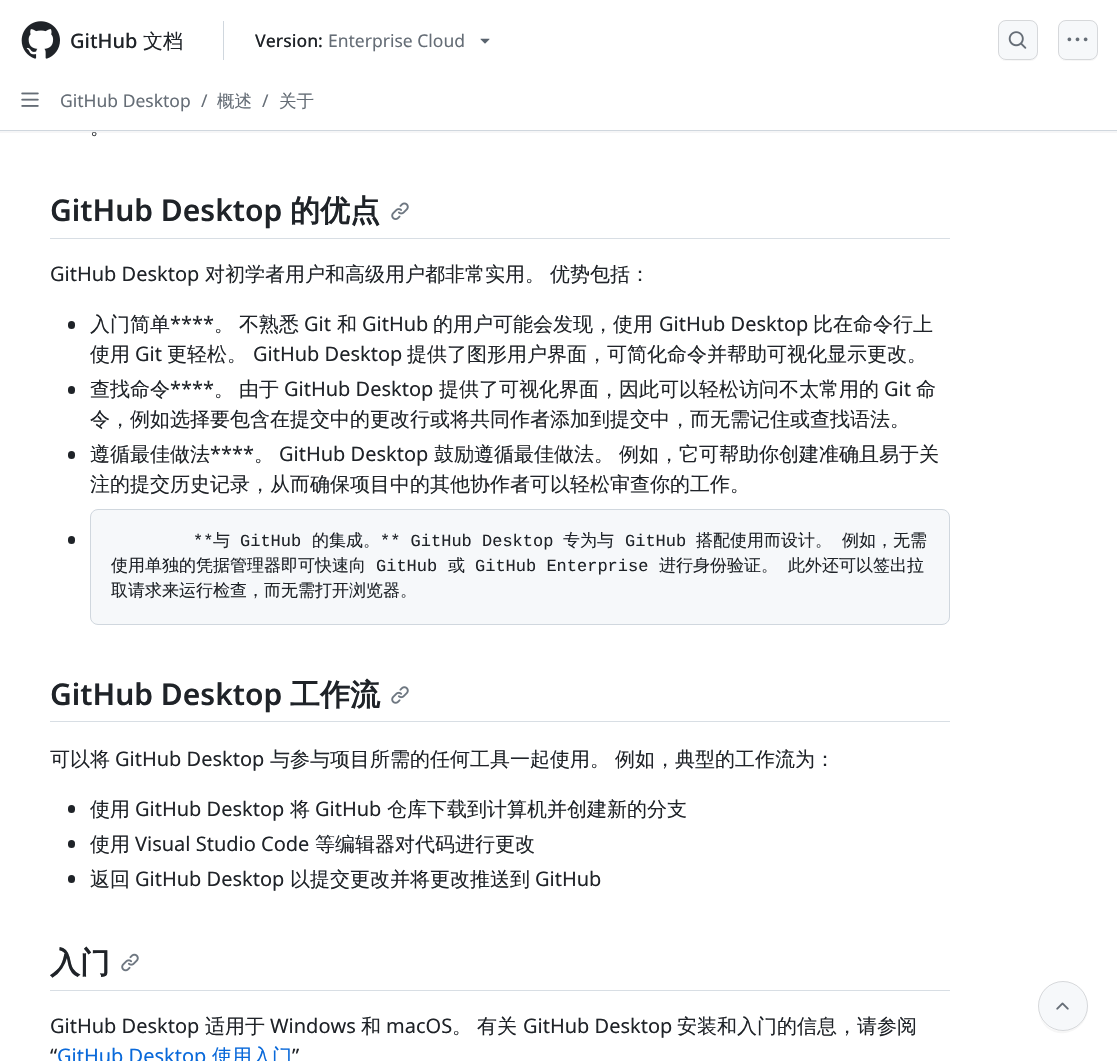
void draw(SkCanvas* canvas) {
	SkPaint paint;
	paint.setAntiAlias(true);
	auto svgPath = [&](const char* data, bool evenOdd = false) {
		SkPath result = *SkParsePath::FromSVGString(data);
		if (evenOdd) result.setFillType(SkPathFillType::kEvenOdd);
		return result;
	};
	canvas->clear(0xffffffff);
	paint.setColor(0x0a1f2328);
	canvas->drawPath(svgPath("M0 131V133H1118V1V131Z"), paint);
	paint.setColor(0xffd0d7de);
	canvas->drawRect(SkRect::MakeXYWH(0, 130, 1117, 1), paint);
	canvas->drawImageRect(SkImages::DeferredFromEncodedData(SkData::MakeFromFileName("img1.png")), SkRect::MakeXYWH(21, 21, 39, 38), SkSamplingOptions());
	SkFont f1(fontMgr->matchFamilyStyle("Noto Sans", SkFontStyle(500, SkFontStyle::kNormal_Width, SkFontStyle::kUpright_Slant)), 20);
	f1.setSubpixel(true);
	paint.setColor(0xff1f2328);
	canvas->drawString("GitHub", 70, 48, f1, paint);
	SkFont f2(fontMgr->matchFamilyStyle("WenQuanYi Zen Hei", SkFontStyle(500, SkFontStyle::kNormal_Width, SkFontStyle::kUpright_Slant)), 20);
	f2.setSubpixel(true);
	canvas->drawString("文档", 143, 48, f2, paint);
	paint.setColor(0xffd0d7de);
	canvas->drawRect(SkRect::MakeXYWH(223, 21, 1, 39), paint);
	SkFont f3(fontMgr->matchFamilyStyle("Noto Sans", SkFontStyle(500, SkFontStyle::kNormal_Width, SkFontStyle::kUpright_Slant)), 17.5);
	f3.setSubpixel(true);
	paint.setColor(0xff1f2328);
	canvas->drawString("Version:", 255, 47, f3, paint);
	SkFont f4(fontMgr->matchFamilyStyle("Noto Sans", SkFontStyle::Normal()), 17.5);
	f4.setSubpixel(true);
	paint.setColor(0xff656d76);
	canvas->drawString("Enterprise Cloud", 328, 47, f4, paint);
	canvas->drawImageRect(SkImages::DeferredFromEncodedData(SkData::MakeFromFileName("img2.png")), SkRect::MakeXYWH(480, 38, 10, 6), SkSamplingOptions());
	paint.setColor(0xfff6f6f6);
	canvas->drawPath(svgPath("M999.5 57.5C1000.5 59.5 1003 61 1006 61H1030C1034.5 61 1038 57.5 1038 53V29C1038 28 1037.5 26.5 1037.5 25.5V31.5V54C1036 60 1031 60 1026 60H1013.5C1009 60 1002.5 61.5 999.5 57.5Z"), paint);
	paint.setColor(0xfff6f8fa);
	canvas->drawRoundRect(SkRect::MakeXYWH(998, 20, 40, 40), 8, 8, paint);
	paint.setStroke(true);
	paint.setStrokeWidth(1);
	paint.setColor(0x261f2328);
	canvas->drawRoundRect(SkRect::MakeXYWH(998.5, 20.5, 39, 39), 7.5, 7.5, paint);
	canvas->drawImageRect(SkImages::DeferredFromEncodedData(SkData::MakeFromFileName("img3.png")), SkRect::MakeXYWH(1008, 31, 19, 18), SkSamplingOptions());
	paint.setStroke(false);
	paint.setColor(0xfff6f6f6);
	canvas->drawPath(svgPath("M1059.5 57.5C1060.5 59.5 1063 61 1066 61H1090C1094.5 61 1098 57.5 1098 53V29C1098 28 1097.5 26.5 1097.5 25.5V31.5V54C1096 60 1091 60 1086 60H1073.5C1069 60 1062.5 61.5 1059.5 57.5Z"), paint);
	paint.setColor(0xfff6f8fa);
	canvas->drawRoundRect(SkRect::MakeXYWH(1058, 20, 40, 40), 8, 8, paint);
	paint.setStroke(true);
	paint.setColor(0x261f2328);
	canvas->drawRoundRect(SkRect::MakeXYWH(1058.5, 20.5, 39, 39), 7.5, 7.5, paint);
	canvas->drawImageRect(SkImages::DeferredFromEncodedData(SkData::MakeFromFileName("img4.png")), SkRect::MakeXYWH(1067, 37, 21, 5), SkSamplingOptions());
	canvas->drawImageRect(SkImages::DeferredFromEncodedData(SkData::MakeFromFileName("img5.png")), SkRect::MakeXYWH(21, 92, 18, 15), SkSamplingOptions());
	paint.setStroke(false);
	paint.setColor(0xff656d76);
	canvas->drawString("GitHub Desktop", 60, 107, f4, paint);
	canvas->drawString("/", 201, 107, f4, paint);
	SkFont f5(fontMgr->matchFamilyStyle("WenQuanYi Zen Hei", SkFontStyle(500, SkFontStyle::kNormal_Width, SkFontStyle::kUpright_Slant)), 17.5);
	f5.setSubpixel(true);
	canvas->drawString("概述", 217, 107, f5, paint);
	canvas->drawString("/", 262, 107, f4, paint);
	canvas->drawString("关于", 279, 107, f5, paint);
	paint.setColor(0xff1f2328);
	canvas->drawString("。", 90, 134, f2, paint);
	paint.setColor(0xffd8dee4);
	canvas->drawRect(SkRect::MakeXYWH(50, 238, 900, 1), paint);
	SkFont f6(fontMgr->matchFamilyStyle("Noto Sans", SkFontStyle(600, SkFontStyle::kNormal_Width, SkFontStyle::kUpright_Slant)), 30);
	f6.setSubpixel(true);
	paint.setColor(0xff1f2328);
	canvas->drawString("GitHub Desktop", 50, 221, f6, paint);
	SkFont f7(fontMgr->matchFamilyStyle("WenQuanYi Zen Hei", SkFontStyle::Bold()), 30);
	f7.setSubpixel(true);
	canvas->drawString("的优点", 290, 221, f7, paint);
	canvas->drawImageRect(SkImages::DeferredFromEncodedData(SkData::MakeFromFileName("img6.png")), SkRect::MakeXYWH(391, 202, 18, 18), SkSamplingOptions());
	SkFont f8(fontMgr->matchFamilyStyle("Noto Sans", SkFontStyle::Normal()), 20);
	f8.setSubpixel(true);
	canvas->drawString("GitHub Desktop", 50, 281, f8, paint);
	canvas->drawString("对初学者用户和高级用户都非常实用。", 205, 281, f2, paint);
	canvas->drawString("优势包括：", 550, 281, f2, paint);
	canvas->drawRoundRect(SkRect::MakeXYWH(68, 321, 7, 8), 3.5, 3.5, paint);
	canvas->drawString("入门简单", 90, 331, f2, paint);
	canvas->drawString("****", 170, 331, f8, paint);
	canvas->drawString("不熟悉", 239, 331, f2, paint);
	canvas->drawString("Git", 304, 331, f8, paint);
	canvas->drawString("和", 337, 331, f2, paint);
	canvas->drawString("GitHub", 362, 331, f8, paint);
	canvas->drawString("的用户可能会发现，使用", 433, 331, f2, paint);
	canvas->drawString("GitHub Desktop", 659, 331, f8, paint);
	canvas->drawString("比在命令行上", 813, 331, f2, paint);
	canvas->drawString("。", 214, 331, f2, paint);
	canvas->drawString("使用", 90, 361, f2, paint);
	canvas->drawString("Git", 135, 361, f8, paint);
	canvas->drawString("更轻松。", 167, 361, f2, paint);
	canvas->drawString("GitHub Desktop", 253, 361, f8, paint);
	canvas->drawString("提供了图形用户界面，可简化命令并帮助可视化显示更改。", 407, 361, f2, paint);
	canvas->drawRoundRect(SkRect::MakeXYWH(68, 386, 7, 8), 3.5, 3.5, paint);
	canvas->drawString("查找命令", 90, 396, f2, paint);
	canvas->drawString("****", 170, 396, f8, paint);
	canvas->drawString("由于", 239, 396, f2, paint);
	canvas->drawString("GitHub Desktop", 284, 396, f8, paint);
	canvas->drawString("提供了可视化界面，因此可以轻松访问不太常用的", 439, 396, f2, paint);
	canvas->drawString("Git", 884, 396, f8, paint);
	canvas->drawString("命", 916, 396, f2, paint);
	canvas->drawString("。", 214, 396, f2, paint);
	canvas->drawString("令，例如选择要包含在提交中的更改行或将共同作者添加到提交中，而无需记住或查找语法。", 90, 426, f2, paint);
	canvas->drawRoundRect(SkRect::MakeXYWH(68, 451, 7, 8), 3.5, 3.5, paint);
	canvas->drawString("遵循最佳做法", 90, 461, f2, paint);
	canvas->drawString("****", 210, 461, f8, paint);
	canvas->drawString("GitHub Desktop", 279, 461, f8, paint);
	canvas->drawString("鼓励遵循最佳做法。", 434, 461, f2, paint);
	canvas->drawString("例如，它可帮助你创建准确且易于关", 619, 461, f2, paint);
	canvas->drawString("。", 254, 461, f2, paint);
	canvas->drawString("注的提交历史记录，从而确保项目中的其他协作者可以轻松审查你的工作。", 90, 491, f2, paint);
	canvas->drawRoundRect(SkRect::MakeXYWH(68, 536, 7, 8), 3.5, 3.5, paint);
	paint.setColor(0xfff6f8fa);
	canvas->drawRoundRect(SkRect::MakeXYWH(90.5, 509.5, 859, 115), 7.5, 7.5, paint);
	paint.setStroke(true);
	paint.setColor(0xffd0d7de);
	canvas->drawRoundRect(SkRect::MakeXYWH(90.5, 509.5, 859, 115), 7.5, 7.5, paint);
	SkFont f9(fontMgr->matchFamilyStyle("Liberation Mono", SkFontStyle::Normal()), 17);
	f9.setSubpixel(true);
	paint.setStroke(false);
	paint.setColor(0xff1f2328);
	canvas->drawString("**", 193, 546, f9, paint);
	SkFont f10(fontMgr->matchFamilyStyle("WenQuanYi Zen Hei", SkFontStyle(500, SkFontStyle::kNormal_Width, SkFontStyle::kUpright_Slant)), 17);
	f10.setSubpixel(true);
	canvas->drawString("与", 213, 546, f10, paint);
	canvas->drawString("GitHub", 240, 546, f9, paint);
	canvas->drawString("的集成。", 312, 546, f10, paint);
	canvas->drawString("** GitHub Desktop", 380, 546, f9, paint);
	canvas->drawString("专为与", 563, 546, f10, paint);
	canvas->drawString("GitHub", 625, 546, f9, paint);
	canvas->drawString("搭配使用而设计。", 696, 546, f10, paint);
	canvas->drawString("例如，无需", 842, 546, f10, paint);
	canvas->drawString("使用单独的凭据管理器即可快速向", 111, 571, f10, paint);
	canvas->drawString("GitHub", 376, 571, f9, paint);
	canvas->drawString("或", 448, 571, f10, paint);
	canvas->drawString("GitHub Enterprise", 475, 571, f9, paint);
	canvas->drawString("进行身份验证。", 659, 571, f10, paint);
	canvas->drawString("此外还可以签出拉", 788, 571, f10, paint);
	canvas->drawString("取请求来运行检查，而无需打开浏览器。", 111, 596, f10, paint);
	paint.setColor(0xffd8dee4);
	canvas->drawRect(SkRect::MakeXYWH(50, 721, 900, 1), paint);
	paint.setColor(0xff1f2328);
	canvas->drawString("GitHub Desktop", 50, 705, f6, paint);
	canvas->drawString("工作流", 290, 705, f7, paint);
	canvas->drawImageRect(SkImages::DeferredFromEncodedData(SkData::MakeFromFileName("img7.png")), SkRect::MakeXYWH(391, 686, 18, 18), SkSamplingOptions());
	canvas->drawString("可以将", 50, 766, f2, paint);
	canvas->drawString("GitHub Desktop", 115, 766, f8, paint);
	canvas->drawString("与参与项目所需的任何工具一起使用。", 270, 766, f2, paint);
	canvas->drawString("例如，典型的工作流为：", 615, 766, f2, paint);
	canvas->drawRoundRect(SkRect::MakeXYWH(68, 805, 7, 8), 3.5, 3.5, paint);
	canvas->drawString("使用", 90, 816, f2, paint);
	canvas->drawString("GitHub Desktop", 135, 816, f8, paint);
	canvas->drawString("将", 290, 816, f2, paint);
	canvas->drawString("GitHub", 315, 816, f8, paint);
	canvas->drawString("仓库下载到计算机并创建新的分支", 387, 816, f2, paint);
	canvas->drawRoundRect(SkRect::MakeXYWH(68, 840, 7, 8), 3.5, 3.5, paint);
	canvas->drawString("使用", 90, 851, f2, paint);
	canvas->drawString("Visual Studio Code", 135, 851, f8, paint);
	canvas->drawString("等编辑器对代码进行更改", 315, 851, f2, paint);
	canvas->drawRoundRect(SkRect::MakeXYWH(68, 875, 7, 8), 3.5, 3.5, paint);
	canvas->drawString("返回", 90, 886, f2, paint);
	canvas->drawString("GitHub Desktop", 135, 886, f8, paint);
	canvas->drawString("以提交更改并将更改推送到", 290, 886, f2, paint);
	canvas->drawString("GitHub", 535, 886, f8, paint);
	paint.setColor(0xffd8dee4);
	canvas->drawRect(SkRect::MakeXYWH(50, 990, 900, 1), paint);
	paint.setColor(0xff1f2328);
	canvas->drawString("入门", 50, 973, f7, paint);
	canvas->drawImageRect(SkImages::DeferredFromEncodedData(SkData::MakeFromFileName("img8.png")), SkRect::MakeXYWH(121, 953, 18, 19), SkSamplingOptions());
	canvas->drawString("GitHub Desktop", 50, 1033, f8, paint);
	canvas->drawString("适用于", 205, 1033, f2, paint);
	canvas->drawString("Windows", 270, 1033, f8, paint);
	canvas->drawString("和", 361, 1033, f2, paint);
	canvas->drawString("macOS", 386, 1033, f8, paint);
	canvas->drawString("。", 452, 1033, f2, paint);
	canvas->drawString("有关", 477, 1033, f2, paint);
	canvas->drawString("GitHub Desktop", 523, 1033, f8, paint);
	canvas->drawString("安装和入门的信息，请参阅", 677, 1033, f2, paint);
	canvas->drawString("“", 50, 1063, f8, paint);
	paint.setColor(0xff0969da);
	canvas->drawString("GitHub Desktop", 57, 1063, f8, paint);
	canvas->drawString("使用入门", 212, 1063, f2, paint);
	paint.setColor(0xff1f2328);
	canvas->drawString("”", 292, 1063, f8, paint);
	paint.setColor(0xfff6f6f6);
	canvas->drawPath(svgPath("M1039 1014C1040 1019 1043 1024 1047 1028C1067 1043 1094 1023 1087 1000C1094 1031 1049 1044 1039 1014Z"), paint);
	paint.setColor(0xfff6f8fa);
	canvas->drawCircle(1063, 1006, 25, paint);
	paint.setStroke(true);
	paint.setColor(0x261f2328);
	canvas->drawCircle(1063, 1006, 24.5, paint);
	canvas->drawImageRect(SkImages::DeferredFromEncodedData(SkData::MakeFromFileName("img9.png")), SkRect::MakeXYWH(1056, 1002, 13, 8), SkSamplingOptions());
}
